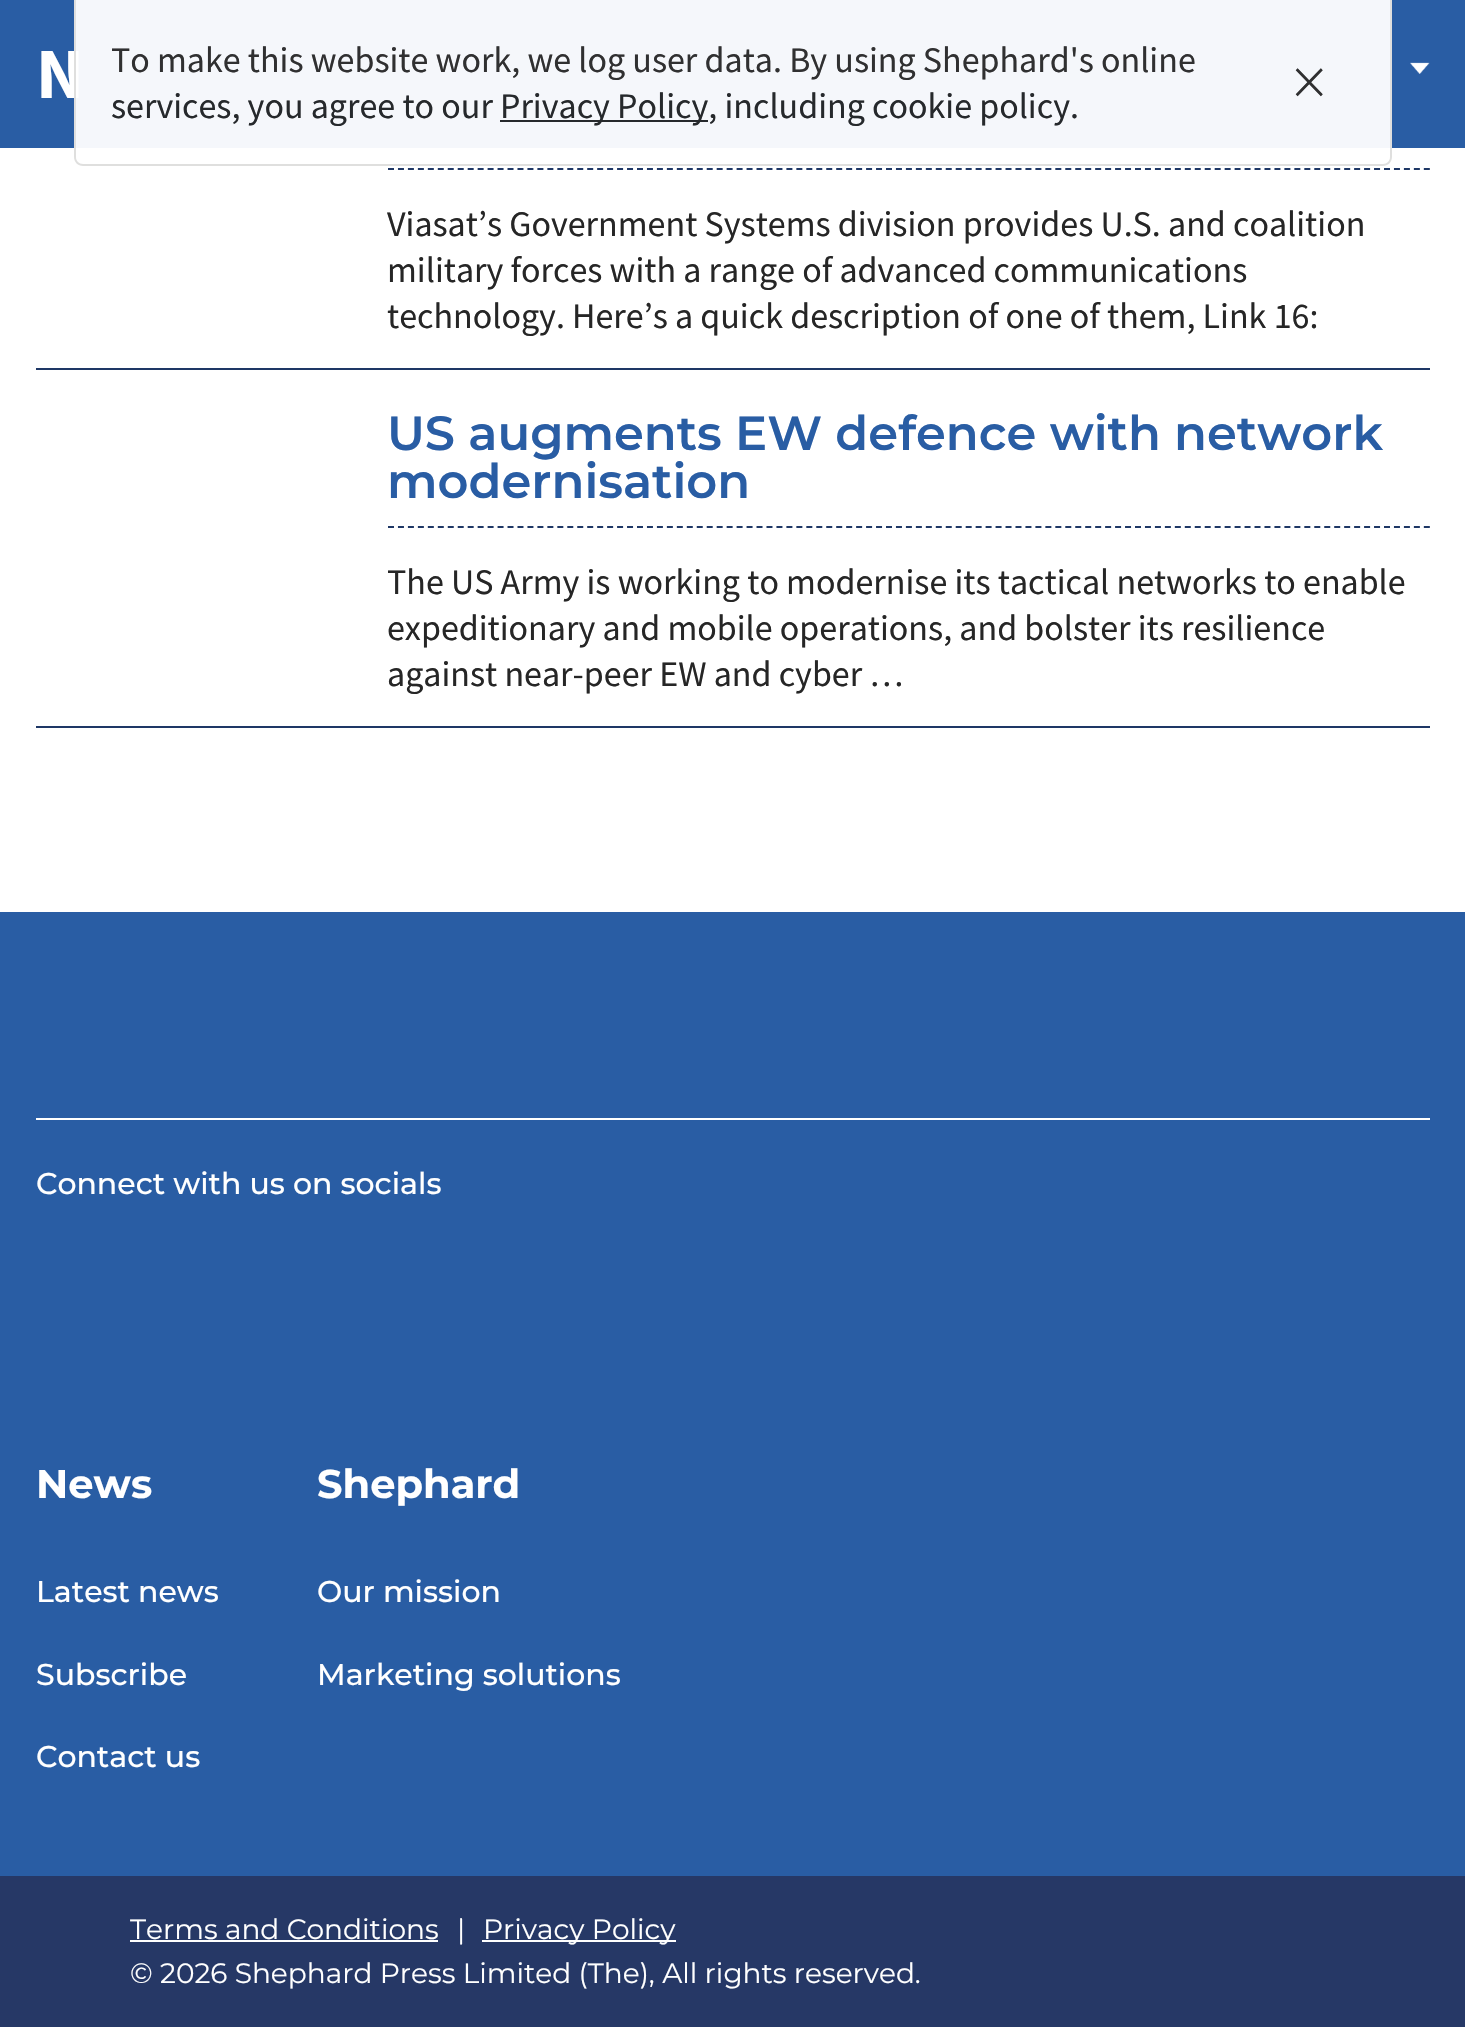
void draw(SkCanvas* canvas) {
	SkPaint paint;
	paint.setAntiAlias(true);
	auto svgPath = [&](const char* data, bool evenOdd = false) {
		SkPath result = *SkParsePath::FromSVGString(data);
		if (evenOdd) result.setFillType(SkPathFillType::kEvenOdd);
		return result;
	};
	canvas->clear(0xffffffff);
	paint.setColor(0xff295da4);
	canvas->drawRect(SkRect::MakeXYWH(0, 0, 1465, 148), paint);
	SkFont f1(fontMgr->matchFamilyStyle("Source Sans Pro", SkFontStyle::Bold()), 72);
	f1.setSubpixel(true);
	paint.setColor(0xffffffff);
	canvas->drawString("N", 36, 98, f1, paint);
	paint.setColor(0xf2ffffff);
	canvas->drawPath(svgPath("M74 0H1392V156C1392 161.5 1387.5 166 1382 166H84C78.5 166 74 161.5 74 156Z"), paint);
	paint.setColor(0xf2dddddc);
	canvas->drawPath(svgPath("M74 0H1392V157C1392 162 1388 166 1383 166H83C78 166 74 162 74 157ZM76 0H1390V157C1390 161 1387 164 1383 164H83C79 164 76 161 76 157Z", true), paint);
	SkFont f2(fontMgr->matchFamilyStyle("Source Sans Pro", SkFontStyle::Normal()), 36);
	f2.setSubpixel(true);
	paint.setColor(0xff303031);
	canvas->drawString("To make this website work, we log user data. By using Shephard's online", 111, 72, f2, paint);
	paint.setColor(0xff26292c);
	canvas->drawString("services, you agree to our", 111, 118, f2, paint);
	canvas->drawRect(SkRect::MakeXYWH(500, 120, 208, 2), paint);
	canvas->drawString("Privacy Policy, including cookie policy.", 500, 118, f2, paint);
	SkFont f3(fontMgr->matchFamilyStyle("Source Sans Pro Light", SkFontStyle(300, SkFontStyle::kNormal_Width, SkFontStyle::kUpright_Slant)), 72);
	f3.setSubpixel(true);
	paint.setColor(0xff303031);
	canvas->drawString("×", 1292, 106, f3, paint);
	canvas->drawImageRect(SkImages::DeferredFromEncodedData(SkData::MakeFromFileName("img1.png")), SkRect::MakeXYWH(1410, 62, 20, 12), SkSamplingOptions());
	paint.setColor(0xff1e3765);
	canvas->drawRect(SkRect::MakeXYWH(36, 368, 1394, 2), paint);
	paint.setStroke(true);
	paint.setStrokeWidth(2);
	paint.setPathEffect(SkDashPathEffect::Make({{6, 3.96f}}, 0));
	canvas->drawPath(svgPath("M388 169H1430"), paint);
	paint.setPathEffect(nullptr);
	paint.setStroke(false);
	paint.setColor(0xff262626);
	canvas->drawString("Viasat’s Government Systems division provides U.S. and coalition", 387, 236, f2, paint);
	canvas->drawString("military forces with a range of advanced communications", 387, 282, f2, paint);
	canvas->drawString("technology. Here’s a quick description of one of them, Link 16:", 387, 328, f2, paint);
	paint.setColor(0xff1e3765);
	canvas->drawRect(SkRect::MakeXYWH(36, 726, 1394, 2), paint);
	paint.setStroke(true);
	paint.setPathEffect(SkDashPathEffect::Make({{6, 3.96f}}, 0));
	canvas->drawPath(svgPath("M388 527H1430"), paint);
	paint.setPathEffect(nullptr);
	SkFont f4(fontMgr->matchFamilyStyle("Montserrat", SkFontStyle(600, SkFontStyle::kNormal_Width, SkFontStyle::kUpright_Slant)), 48);
	f4.setSubpixel(true);
	paint.setStroke(false);
	paint.setColor(0xff295da4);
	canvas->drawString("US augments EW defence with network", 387, 450, f4, paint);
	canvas->drawString("modernisation", 387, 498, f4, paint);
	paint.setColor(0xff262626);
	canvas->drawString("The US Army is working to modernise its tactical networks to enable", 387, 594, f2, paint);
	canvas->drawString("expeditionary and mobile operations, and bolster its resilience", 387, 640, f2, paint);
	canvas->drawString("against near-peer EW and cyber …", 387, 686, f2, paint);
	paint.setColor(0xff295da4);
	canvas->drawRect(SkRect::MakeXYWH(0, 912, 1465, 964), paint);
	paint.setColor(0xffffffff);
	canvas->drawRect(SkRect::MakeXYWH(36, 1118, 1394, 2), paint);
	SkFont f5(fontMgr->matchFamilyStyle("Montserrat", SkFontStyle(500, SkFontStyle::kNormal_Width, SkFontStyle::kUpright_Slant)), 30);
	f5.setSubpixel(true);
	canvas->drawString("Connect with us on socials", 36, 1194, f5, paint);
	SkFont f6(fontMgr->matchFamilyStyle("Montserrat", SkFontStyle::Bold()), 40);
	f6.setSubpixel(true);
	canvas->drawString("News", 36, 1498, f6, paint);
	canvas->drawString("Latest news", 36, 1602, f5, paint);
	canvas->drawString("Subscribe", 36, 1685, f5, paint);
	canvas->drawString("Contact us", 36, 1767, f5, paint);
	canvas->drawString("Shephard", 317, 1498, f6, paint);
	canvas->drawString("Our mission", 317, 1602, f5, paint);
	canvas->drawString("Marketing solutions", 317, 1685, f5, paint);
	paint.setColor(0xff263866);
	canvas->drawRect(SkRect::MakeXYWH(0, 1876, 1465, 151), paint);
	SkFont f7(fontMgr->matchFamilyStyle("Montserrat", SkFontStyle(100, SkFontStyle::kNormal_Width, SkFontStyle::kUpright_Slant)), 28);
	f7.setSubpixel(true);
	paint.setColor(0xffffffff);
	canvas->drawString("Terms and Conditions", 130, 1939, f7, paint);
	canvas->drawRect(SkRect::MakeXYWH(130, 1940, 308, 2), paint);
	canvas->drawString("|", 457, 1939, f7, paint);
	canvas->drawRect(SkRect::MakeXYWH(482, 1940, 194, 2), paint);
	canvas->drawString("Privacy Policy", 483, 1939, f7, paint);
	canvas->drawString("© 2026 Shephard Press Limited (The), All rights reserved.", 130, 1983, f7, paint);
}
